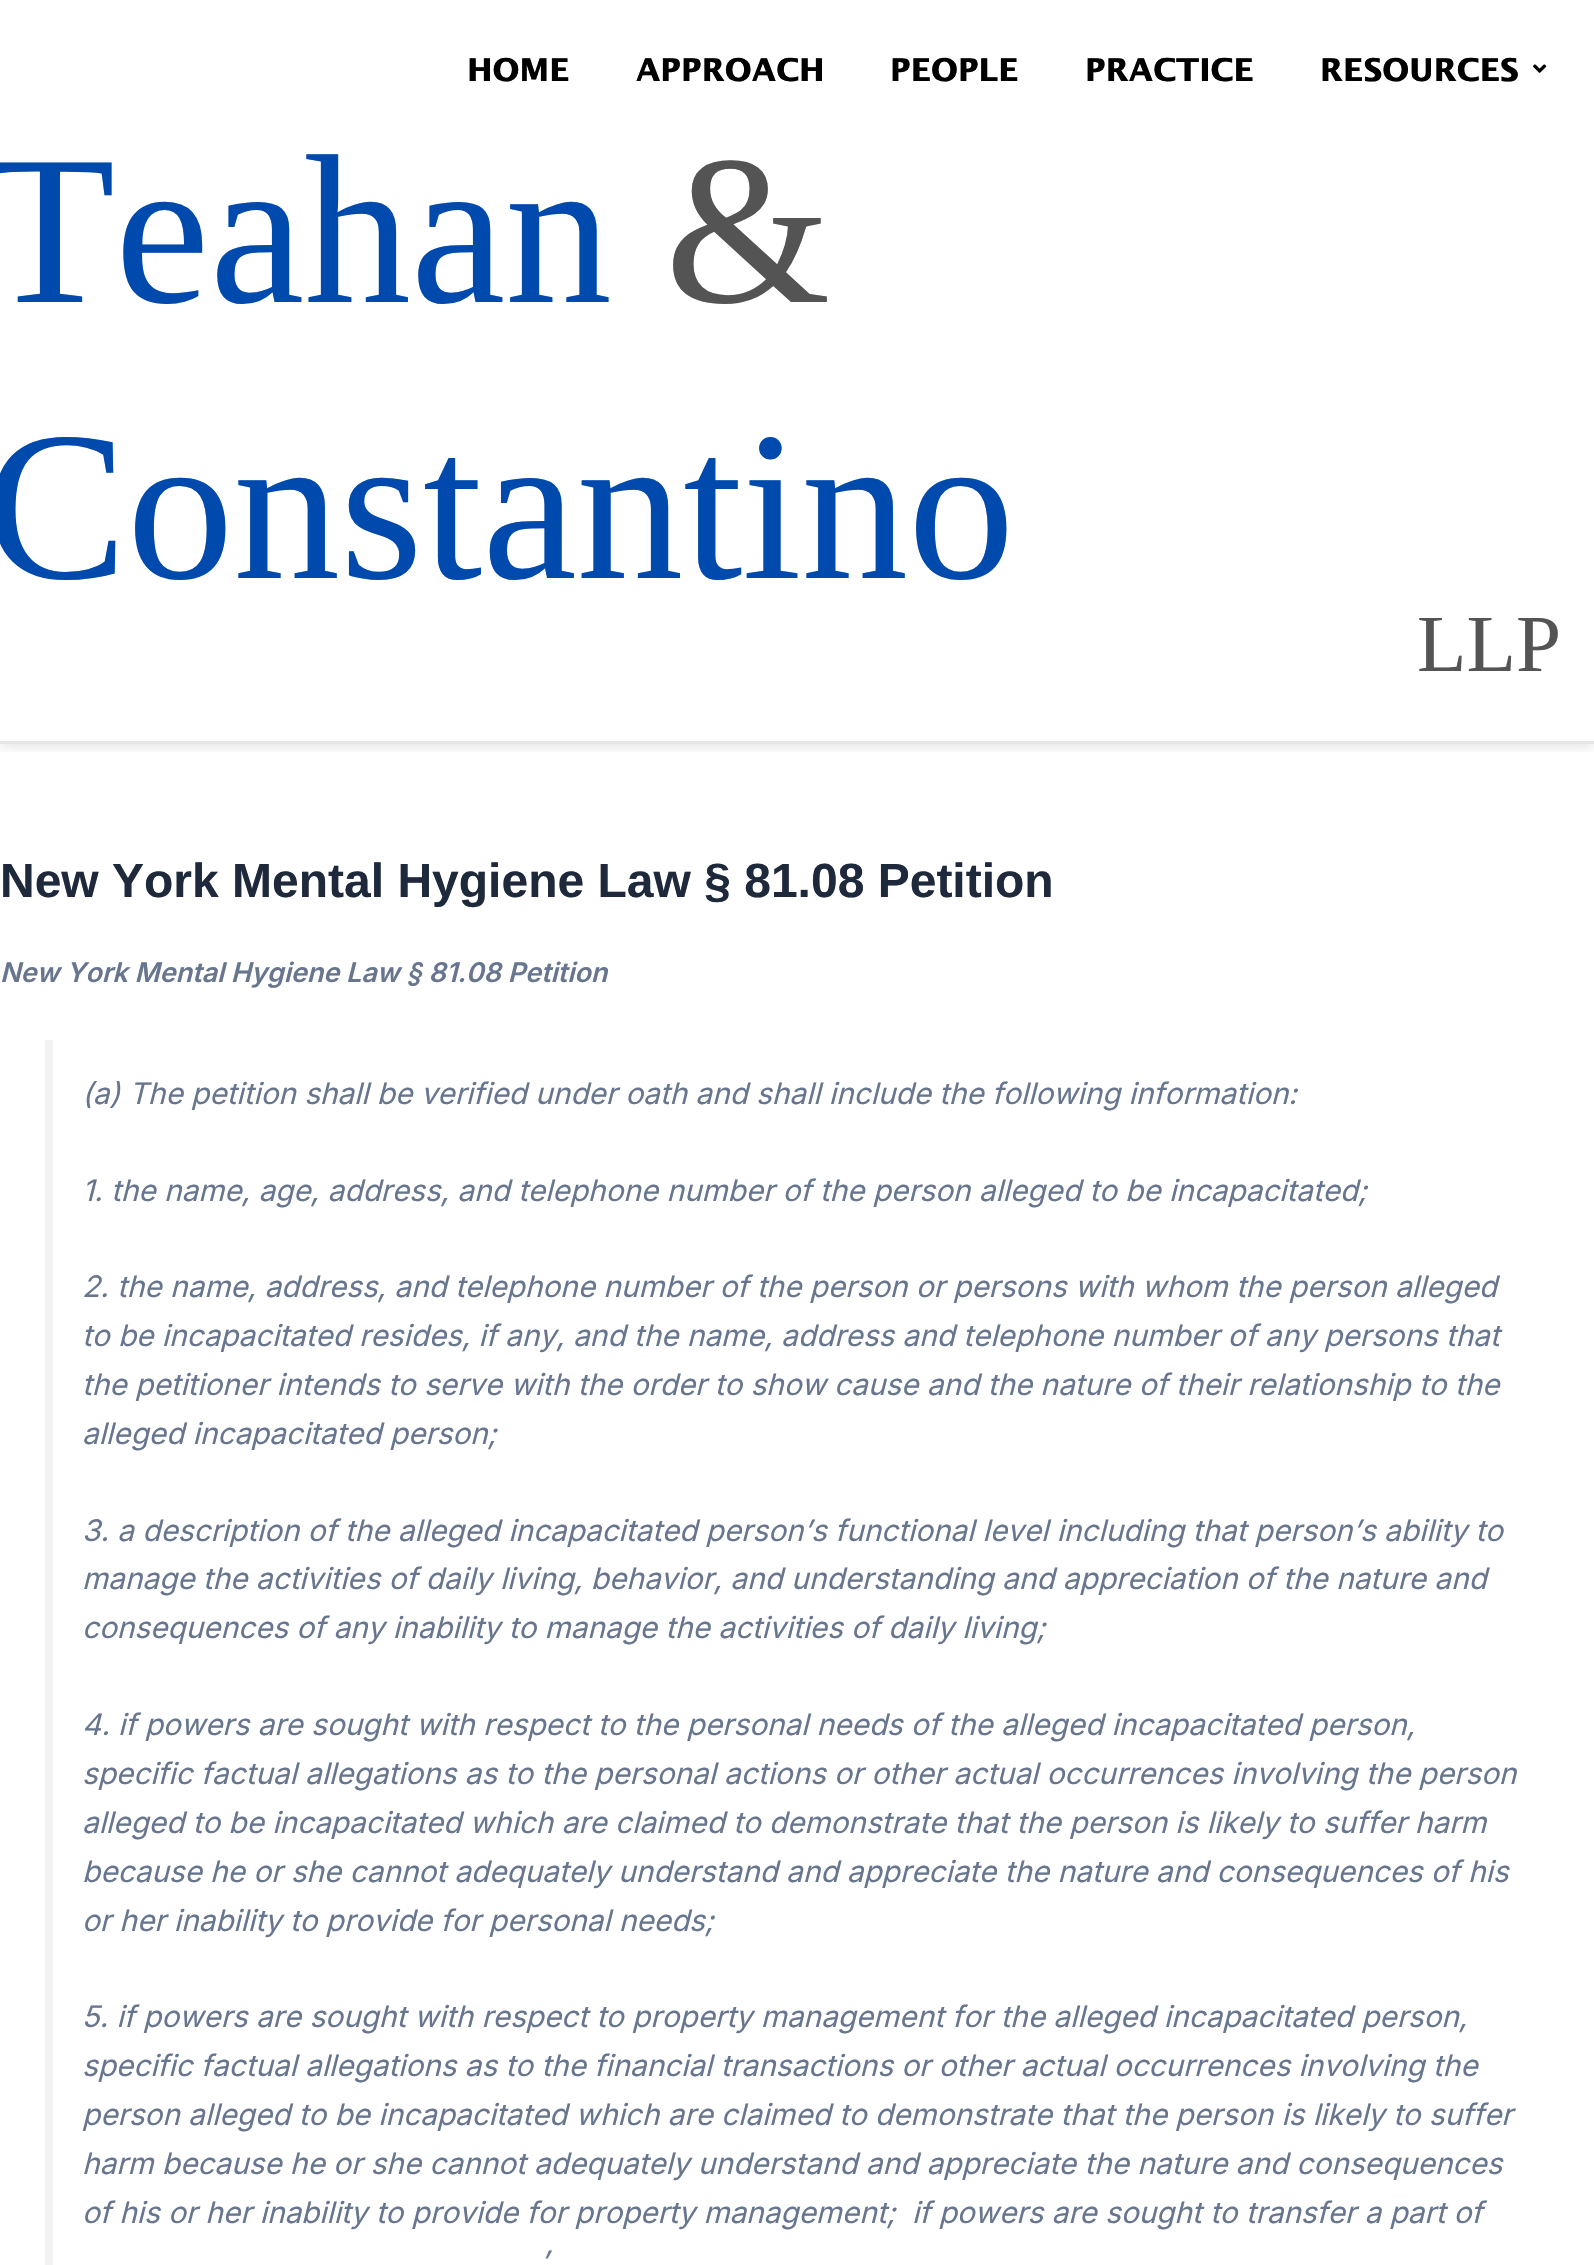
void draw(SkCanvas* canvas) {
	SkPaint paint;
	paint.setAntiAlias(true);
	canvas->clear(0xffffffff);
	canvas->save();
	canvas->clipRect(SkRect::MakeXYWH(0, 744, 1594, 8));
	paint.setColor(0x26000000);
	paint.setMaskFilter(SkMaskFilter::MakeBlur(kNormal_SkBlurStyle, 7.5));
	canvas->drawRect(SkRect::MakeXYWH(0, 0, 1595, 744), paint);
	paint.setMaskFilter(nullptr);
	canvas->restore();
	paint.setColor(0xffe6e6e6);
	canvas->drawRect(SkRect::MakeXYWH(0, 741, 1594, 3), paint);
	SkFont f1(fontMgr->matchFamilyStyle("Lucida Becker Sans", SkFontStyle::Bold()), 31.5);
	f1.setSubpixel(true);
	paint.setColor(0xff000000);
	canvas->drawString("HOME", 467, 81, f1, paint);
	canvas->drawString("APPROACH", 636, 81, f1, paint);
	canvas->drawString("PEOPLE", 890, 81, f1, paint);
	canvas->drawString("PRACTICE", 1085, 81, f1, paint);
	canvas->drawString("RESOURCES", 1320, 81, f1, paint);
	canvas->drawImageRect(SkImages::DeferredFromEncodedData(SkData::MakeFromFileName("img1.png")), SkRect::MakeXYWH(1533, 64, 14, 9), SkSamplingOptions());
	SkFont f2(fontMgr->matchFamilyStyle("Liberation Serif", SkFontStyle::Normal()), 213);
	f2.setSubpixel(true);
	paint.setColor(0xff004aad);
	canvas->drawString("Teahan", -15, 302, f2, paint);
	paint.setColor(0xff545454);
	canvas->drawString("&", 665, 302, f2, paint);
	paint.setColor(0xff004aad);
	canvas->drawString("Constantino", -15, 578, f2, paint);
	SkFont f3(fontMgr->matchFamilyStyle("Liberation Serif", SkFontStyle::Normal()), 81);
	f3.setSubpixel(true);
	paint.setColor(0xff545454);
	canvas->drawString("LLP", 1417, 671, f3, paint);
	SkFont f4(fontMgr->matchFamilyStyle("Liberation Sans", SkFontStyle::Bold()), 48);
	f4.setSubpixel(true);
	paint.setColor(0xff1e293b);
	canvas->drawString("New York Mental Hygiene Law § 81.08 Petition", 0, 897, f4, paint);
	SkFont f5(fontMgr->matchFamilyStyle("Inter", SkFontStyle(600, SkFontStyle::kNormal_Width, SkFontStyle::kItalic_Slant)), 27);
	f5.setSubpixel(true);
	paint.setColor(0xff67768e);
	canvas->drawString("New York Mental Hygiene Law § 81.08 Petition", 0, 982, f5, paint);
	paint.setColor(0xfff2f2f2);
	canvas->drawRect(SkRect::MakeXYWH(45, 1040, 8, 1225), paint);
	SkFont f6(fontMgr->matchFamilyStyle("Inter", SkFontStyle::Italic()), 29.7);
	f6.setSubpixel(true);
	paint.setColor(0xff67768e);
	canvas->drawString("(a) The petition shall be verified under oath and shall include the following information:", 82, 1104, f6, paint);
	canvas->drawString("1. the name, age, address, and telephone number of the person alleged to be incapacitated;", 82, 1201, f6, paint);
	canvas->drawString("2. the name, address, and telephone number of the person or persons with whom the person alleged", 82, 1297, f6, paint);
	canvas->drawString("to be incapacitated resides, if any, and the name, address and telephone number of any persons that", 82, 1346, f6, paint);
	canvas->drawString("the petitioner intends to serve with the order to show cause and the nature of their relationship to the", 82, 1395, f6, paint);
	canvas->drawString("alleged incapacitated person;", 82, 1444, f6, paint);
	canvas->drawString("3. a description of the alleged incapacitated person’s functional level including that person’s ability to", 82, 1541, f6, paint);
	canvas->drawString("manage the activities of daily living, behavior, and understanding and appreciation of the nature and", 82, 1589, f6, paint);
	canvas->drawString("consequences of any inability to manage the activities of daily living;", 82, 1638, f6, paint);
	canvas->drawString("4. if powers are sought with respect to the personal needs of the alleged incapacitated person,", 82, 1735, f6, paint);
	canvas->drawString("specific factual allegations as to the personal actions or other actual occurrences involving the person", 82, 1784, f6, paint);
	canvas->drawString("alleged to be incapacitated which are claimed to demonstrate that the person is likely to suffer harm", 82, 1833, f6, paint);
	canvas->drawString("because he or she cannot adequately understand and appreciate the nature and consequences of his", 82, 1882, f6, paint);
	canvas->drawString("or her inability to provide for personal needs;", 82, 1931, f6, paint);
	canvas->drawString("5. if powers are sought with respect to property management for the alleged incapacitated person,", 82, 2027, f6, paint);
	canvas->drawString("specific factual allegations as to the financial transactions or other actual occurrences involving the", 82, 2076, f6, paint);
	canvas->drawString("person alleged to be incapacitated which are claimed to demonstrate that the person is likely to suffer", 82, 2125, f6, paint);
	canvas->drawString("harm because he or she cannot adequately understand and appreciate the nature and consequences", 82, 2174, f6, paint);
	canvas->drawString("of his or her inability to provide for property management;  if powers are sought to transfer a part of", 82, 2223, f6, paint);
	canvas->drawString("’", 540, 2272, f6, paint);
}
